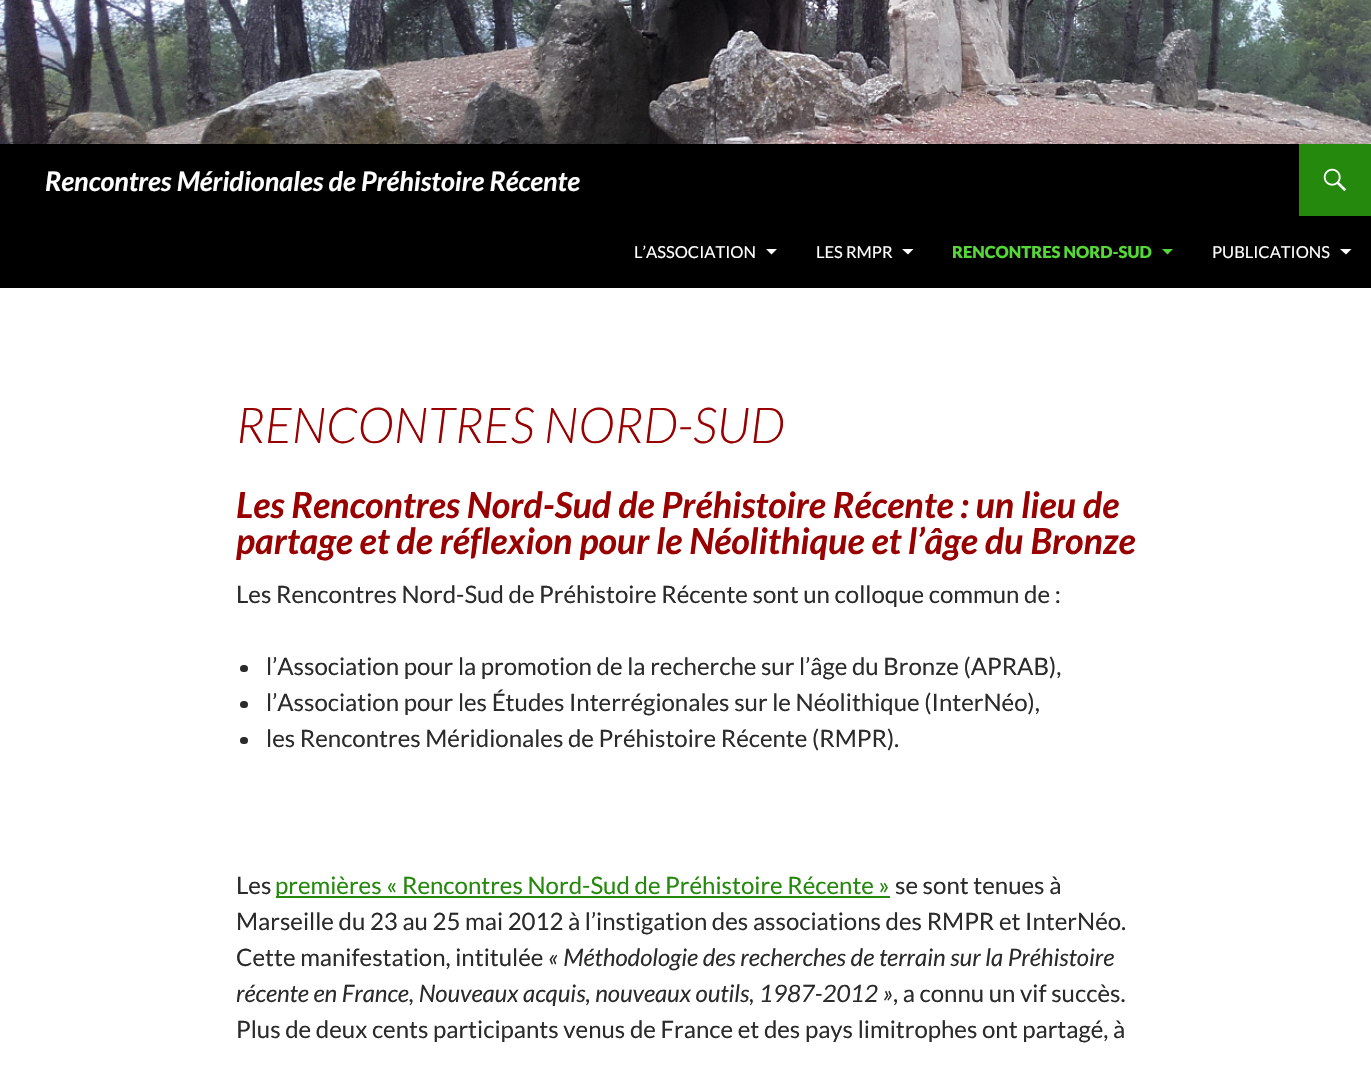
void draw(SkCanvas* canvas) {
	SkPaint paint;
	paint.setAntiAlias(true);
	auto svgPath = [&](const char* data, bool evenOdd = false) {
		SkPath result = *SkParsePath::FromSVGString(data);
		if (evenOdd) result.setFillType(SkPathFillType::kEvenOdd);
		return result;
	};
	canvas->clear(0xffffffff);
	canvas->drawImageRect(SkImages::DeferredFromEncodedData(SkData::MakeFromFileName("img1.png")), SkRect::MakeXYWH(0, 0, 1371, 144), SkSamplingOptions());
	paint.setColor(0xff000000);
	canvas->drawRect(SkRect::MakeXYWH(0, 144, 1371, 144), paint);
	SkFont f1(fontMgr->matchFamilyStyle("Lato", SkFontStyle::BoldItalic()), 27);
	f1.setSubpixel(true);
	paint.setColor(0xffffffff);
	canvas->drawString("Rencontres Méridionales de Préhistoire Récente", 45, 191, f1, paint);
	paint.setColor(0xff24890d);
	canvas->drawRect(SkRect::MakeXYWH(1299, 144, 72, 72), paint);
	canvas->drawImageRect(SkImages::DeferredFromEncodedData(SkData::MakeFromFileName("img2.png")), SkRect::MakeXYWH(1323, 168, 24, 24), SkSamplingOptions());
	SkFont f2(fontMgr->matchFamilyStyle("Lato", SkFontStyle::Normal()), 16.5);
	f2.setSubpixel(true);
	paint.setColor(0xffffffff);
	canvas->drawString("L’ASSOCIATION", 634, 258, f2, paint);
	canvas->drawPath(svgPath("M766 249L771.5 254.5L777 249Z"), paint);
	canvas->drawString("LES RMPR", 816, 258, f2, paint);
	canvas->drawPath(svgPath("M902 249L908 254.5L913.5 249Z"), paint);
	SkFont f3(fontMgr->matchFamilyStyle("Lato", SkFontStyle(900, SkFontStyle::kNormal_Width, SkFontStyle::kUpright_Slant)), 16.5);
	f3.setSubpixel(true);
	paint.setColor(0xff55d737);
	canvas->drawString("RENCONTRES NORD-SUD", 952, 258, f3, paint);
	canvas->drawPath(svgPath("M1162 249L1167.5 254.5L1173 249Z"), paint);
	paint.setColor(0xffffffff);
	canvas->drawString("PUBLICATIONS", 1212, 258, f2, paint);
	canvas->drawPath(svgPath("M1340 249L1346 254.5L1351.5 249Z"), paint);
	SkFont f4(fontMgr->matchFamilyStyle("Lato", SkFontStyle(300, SkFontStyle::kNormal_Width, SkFontStyle::kItalic_Slant)), 49.5);
	f4.setSubpixel(true);
	paint.setColor(0xff990000);
	canvas->drawString("RENCONTRES NORD-SUD", 236, 443, f4, paint);
	SkFont f5(fontMgr->matchFamilyStyle("Lato", SkFontStyle::BoldItalic()), 36);
	f5.setSubpixel(true);
	canvas->drawString("Les Rencontres Nord-Sud de Préhistoire Récente : un lieu de", 236, 518, f5, paint);
	canvas->drawString("partage et de réflexion pour le Néolithique et l’âge du Bronze", 236, 554, f5, paint);
	SkFont f6(fontMgr->matchFamilyStyle("Lato", SkFontStyle::Normal()), 24);
	f6.setSubpixel(true);
	paint.setColor(0xff2b2b2b);
	canvas->drawString("Les Rencontres Nord-Sud de Préhistoire Récente sont un colloque commun de :", 236, 603, f6, paint);
	canvas->drawRoundRect(SkRect::MakeXYWH(240, 665, 8, 7), 3.5, 3.5, paint);
	canvas->drawString("l’Association pour la promotion de la recherche sur l’âge du Bronze (APRAB),", 266, 675, f6, paint);
	canvas->drawRoundRect(SkRect::MakeXYWH(240, 701, 8, 7), 3.5, 3.5, paint);
	canvas->drawString("l’Association pour les Études Interrégionales sur le Néolithique (InterNéo),", 266, 711, f6, paint);
	canvas->drawRoundRect(SkRect::MakeXYWH(240, 737, 8, 7), 3.5, 3.5, paint);
	canvas->drawString("les Rencontres Méridionales de Préhistoire Récente (RMPR).", 266, 747, f6, paint);
	canvas->drawString("Les", 236, 894, f6, paint);
	paint.setColor(0xff24890d);
	canvas->drawRect(SkRect::MakeXYWH(276, 896, 614, 2), paint);
	canvas->drawString("premières « Rencontres Nord-Sud de Préhistoire Récente »", 275, 894, f6, paint);
	paint.setColor(0xff2b2b2b);
	canvas->drawString("se sont tenues à", 895, 894, f6, paint);
	canvas->drawString("Marseille du 23 au 25 mai 2012 à l’instigation des associations des RMPR et InterNéo.", 236, 930, f6, paint);
	canvas->drawString("Cette manifestation, intitulée", 236, 966, f6, paint);
	SkFont f7(fontMgr->matchFamilyStyle("Lato", SkFontStyle::Italic()), 24);
	f7.setSubpixel(true);
	canvas->drawString("« Méthodologie des recherches de terrain sur la Préhistoire", 548, 966, f7, paint);
	canvas->drawString("récente en France, Nouveaux acquis, nouveaux outils, 1987-2012 »", 236, 1002, f7, paint);
	canvas->drawString(", a connu un vif succès.", 893, 1002, f6, paint);
	canvas->drawString("Plus de deux cents participants venus de France et des pays limitrophes ont partagé, à", 236, 1038, f6, paint);
}
